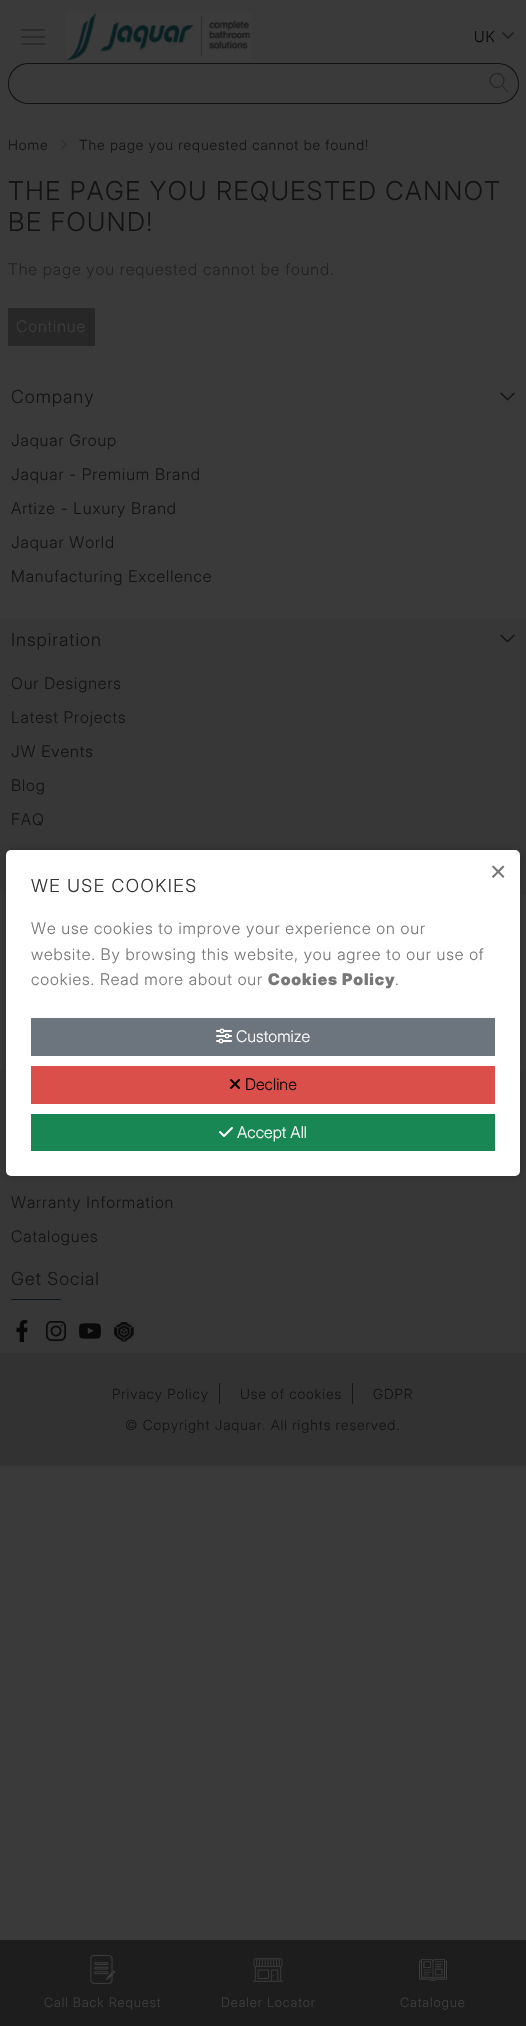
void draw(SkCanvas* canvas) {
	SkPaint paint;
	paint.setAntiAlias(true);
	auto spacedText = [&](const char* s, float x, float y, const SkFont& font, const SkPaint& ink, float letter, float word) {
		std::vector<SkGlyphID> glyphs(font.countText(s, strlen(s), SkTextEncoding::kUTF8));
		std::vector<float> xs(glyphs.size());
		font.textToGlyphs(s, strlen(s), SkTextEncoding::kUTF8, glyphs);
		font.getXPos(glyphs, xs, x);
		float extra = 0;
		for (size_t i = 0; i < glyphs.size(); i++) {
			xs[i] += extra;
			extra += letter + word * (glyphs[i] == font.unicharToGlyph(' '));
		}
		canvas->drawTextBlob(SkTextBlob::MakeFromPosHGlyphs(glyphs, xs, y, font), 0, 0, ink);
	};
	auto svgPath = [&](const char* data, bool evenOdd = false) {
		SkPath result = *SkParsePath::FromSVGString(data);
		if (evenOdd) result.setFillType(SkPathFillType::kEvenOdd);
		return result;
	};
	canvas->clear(0xff3a3a3a);
	canvas->drawImageRect(SkImages::DeferredFromEncodedData(SkData::MakeFromFileName("img1.png")), SkRect::MakeXYWH(21, 29, 24, 16), SkSamplingOptions());
	canvas->drawImageRect(SkImages::DeferredFromEncodedData(SkData::MakeFromFileName("img2.png")), SkRect::MakeXYWH(66, 12, 185, 49), SkSamplingOptions());
	SkFont f1(fontMgr->matchFamilyStyle("Inter", SkFontStyle(300, SkFontStyle::kNormal_Width, SkFontStyle::kUpright_Slant)), 15);
	f1.setSubpixel(true);
	paint.setColor(0xff090909);
	spacedText("UK", 474, 42, f1, paint, 0.9, 0);
	canvas->drawImageRect(SkImages::DeferredFromEncodedData(SkData::MakeFromFileName("img3.png")), SkRect::MakeXYWH(502, 32, 12, 7), SkSamplingOptions());
	paint.setColor(0xff131313);
	canvas->drawPath(svgPath("M28 63H480V104H28C17 104 8 95 8 84C8 72 17 63 28 63ZM28 64H480V103H28C18 103 9 94 9 84C9 73 18 64 28 64Z", true), paint);
	canvas->drawPath(svgPath("M479 63H498C510 63 519 72 519 84C519 95 510 104 498 104H479ZM479 64H498C509 64 518 73 518 84C518 94 509 103 498 103H479Z", true), paint);
	paint.setStroke(true);
	paint.setStrokeWidth(1.1);
	paint.setColor(0xff222222);
	canvas->drawCircle(497, 80.5, 7, paint);
	canvas->drawPath(svgPath("M502 85.5L508 92.5"), paint);
	SkFont f2(fontMgr->matchFamilyStyle("Inter", SkFontStyle(300, SkFontStyle::kNormal_Width, SkFontStyle::kUpright_Slant)), 14);
	f2.setSubpixel(true);
	paint.setStroke(false);
	paint.setColor(0xff131313);
	spacedText("Home", 8, 150, f2, paint, 0.9, 0);
	canvas->drawImageRect(SkImages::DeferredFromEncodedData(SkData::MakeFromFileName("img4.png")), SkRect::MakeXYWH(61, 139, 6, 11), SkSamplingOptions());
	spacedText("The page you requested cannot be found!", 79, 150, f2, paint, 0.9, 0);
	SkFont f3(fontMgr->matchFamilyStyle("Inter", SkFontStyle(300, SkFontStyle::kNormal_Width, SkFontStyle::kUpright_Slant)), 26);
	f3.setSubpixel(true);
	spacedText("THE PAGE YOU REQUESTED CANNOT", 8, 200, f3, paint, 1.5, 0);
	spacedText("BE FOUND!", 8, 231, f3, paint, 1.5, 0);
	SkFont f4(fontMgr->matchFamilyStyle("Inter", SkFontStyle(300, SkFontStyle::kNormal_Width, SkFontStyle::kUpright_Slant)), 16);
	f4.setSubpixel(true);
	paint.setColor(0xff212121);
	spacedText("The page you requested cannot be found.", 8, 275, f4, paint, 0.9, 0);
	paint.setColor(0xff272727);
	canvas->drawRect(SkRect::MakeXYWH(8, 308, 87, 38), paint);
	paint.setColor(0xff3c3c3c);
	spacedText("Continue", 16, 332, f4, paint, 0.9, 0);
	SkFont f5(fontMgr->matchFamilyStyle("Inter", SkFontStyle(300, SkFontStyle::kNormal_Width, SkFontStyle::kUpright_Slant)), 18);
	f5.setSubpixel(true);
	paint.setColor(0xff131313);
	spacedText("Company", 11, 403, f5, paint, 1, 0);
	canvas->drawImageRect(SkImages::DeferredFromEncodedData(SkData::MakeFromFileName("img5.png")), SkRect::MakeXYWH(500, 392, 15, 9), SkSamplingOptions());
	spacedText("Jaquar Group", 11, 446, f4, paint, 0.9, 0);
	spacedText("Jaquar - Premium Brand", 11, 480, f4, paint, 0.9, 0);
	spacedText("Artize - Luxury Brand", 11, 514, f4, paint, 0.9, 0);
	spacedText("Jaquar World", 11, 548, f4, paint, 0.9, 0);
	spacedText("Manufacturing Excellence", 11, 582, f4, paint, 0.9, 0);
	paint.setColor(0xff373737);
	canvas->drawRect(SkRect::MakeXYWH(0, 618, 526, 277), paint);
	paint.setColor(0xff131313);
	spacedText("Inspiration", 11, 646, f5, paint, 1, 0);
	canvas->drawImageRect(SkImages::DeferredFromEncodedData(SkData::MakeFromFileName("img6.png")), SkRect::MakeXYWH(500, 634, 15, 9), SkSamplingOptions());
	spacedText("Our Designers", 11, 689, f4, paint, 0.9, 0);
	spacedText("Latest Projects", 11, 723, f4, paint, 0.9, 0);
	spacedText("JW Events", 11, 757, f4, paint, 0.9, 0);
	spacedText("Blog", 11, 791, f4, paint, 0.9, 0);
	spacedText("FAQ", 11, 825, f4, paint, 0.9, 0);
	paint.setColor(0xff373737);
	canvas->drawRect(SkRect::MakeXYWH(0, 1070, 526, 283), paint);
	paint.setColor(0xff131313);
	spacedText("Warranty Information", 11, 1208, f4, paint, 0.9, 0);
	spacedText("Catalogues", 11, 1242, f4, paint, 0.9, 0);
	spacedText("Get Social", 11, 1285, f5, paint, 1, 0);
	paint.setColor(0xff0b1a1c);
	canvas->drawRect(SkRect::MakeXYWH(11, 1299, 50, 1), paint);
	canvas->drawImageRect(SkImages::DeferredFromEncodedData(SkData::MakeFromFileName("img7.png")), SkRect::MakeXYWH(16, 1320, 12, 22), SkSamplingOptions());
	canvas->drawImageRect(SkImages::DeferredFromEncodedData(SkData::MakeFromFileName("img8.png")), SkRect::MakeXYWH(45, 1320, 22, 22), SkSamplingOptions());
	canvas->drawImageRect(SkImages::DeferredFromEncodedData(SkData::MakeFromFileName("img9.png")), SkRect::MakeXYWH(79, 1323, 22, 16), SkSamplingOptions());
	canvas->drawImageRect(SkImages::DeferredFromEncodedData(SkData::MakeFromFileName("img10.png")), SkRect::MakeXYWH(114, 1322, 20, 20), SkSamplingOptions());
	paint.setColor(0xff323232);
	canvas->drawRect(SkRect::MakeXYWH(0, 1353, 526, 113), paint);
	paint.setColor(0xff161616);
	canvas->drawRect(SkRect::MakeXYWH(219, 1383, 1, 21), paint);
	paint.setColor(0xff131313);
	spacedText("Privacy Policy", 112, 1399, f2, paint, 0.9, 0);
	paint.setColor(0xff161616);
	canvas->drawRect(SkRect::MakeXYWH(352, 1383, 1, 21), paint);
	paint.setColor(0xff131313);
	spacedText("Use of cookies", 240, 1399, f2, paint, 0.9, 0);
	spacedText("GDPR", 373, 1399, f2, paint, 0.9, 0);
	spacedText("© Copyright Jaquar. All rights reserved.", 125, 1430, f2, paint, 0.9, 0);
	paint.setColor(0x33000000);
	paint.setMaskFilter(SkMaskFilter::MakeBlur(kNormal_SkBlurStyle, 5));
	canvas->drawRoundRect(SkRect::MakeXYWH(6, 850, 514, 326), 5, 5, paint);
	paint.setMaskFilter(nullptr);
	paint.setColor(0xffffffff);
	canvas->drawRoundRect(SkRect::MakeXYWH(6, 850, 514, 326), 5, 5, paint);
	SkFont f6(fontMgr->matchFamilyStyle("Liberation Sans", SkFontStyle::Normal()), 28);
	f6.setSubpixel(true);
	paint.setColor(0xff777777);
	canvas->drawString("×", 490, 881, f6, paint);
	paint.setColor(0xff333333);
	spacedText("WE USE COOKIES", 31, 892, f5, paint, 1.5, 0);
	paint.setColor(0xff777777);
	spacedText("We use cookies to improve your experience on our", 31, 934, f4, paint, 0.9, 0);
	spacedText("website. By browsing this website, you agree to our use of", 31, 960, f4, paint, 0.9, 0);
	spacedText("cookies. Read more about our", 31, 985, f4, paint, 0.9, 0);
	SkFont f7(fontMgr->matchFamilyStyle("Inter", SkFontStyle(900, SkFontStyle::kNormal_Width, SkFontStyle::kUpright_Slant)), 16);
	f7.setSubpixel(true);
	spacedText("Cookies Policy", 268, 985, f7, paint, 0.9, 0);
	spacedText(".", 395, 985, f4, paint, 0.9, 0);
	paint.setColor(0xff6c757d);
	canvas->drawRect(SkRect::MakeXYWH(31, 1018, 464, 38), paint);
	canvas->drawImageRect(SkImages::DeferredFromEncodedData(SkData::MakeFromFileName("img11.png")), SkRect::MakeXYWH(216, 1028, 16, 16), SkSamplingOptions());
	paint.setColor(0xffffffff);
	canvas->drawString("Customize", 236, 1042, f4, paint);
	paint.setColor(0xffda4f49);
	canvas->drawRect(SkRect::MakeXYWH(31, 1066, 464, 38), paint);
	canvas->drawImageRect(SkImages::DeferredFromEncodedData(SkData::MakeFromFileName("img12.png")), SkRect::MakeXYWH(230, 1079, 10, 10), SkSamplingOptions());
	paint.setColor(0xff000000);
	canvas->drawString("Decline", 245, 1090, f4, paint);
	paint.setColor(0xff198754);
	canvas->drawRect(SkRect::MakeXYWH(31, 1114, 464, 37), paint);
	canvas->drawImageRect(SkImages::DeferredFromEncodedData(SkData::MakeFromFileName("img13.png")), SkRect::MakeXYWH(219, 1127, 14, 10), SkSamplingOptions());
	paint.setColor(0xffffffff);
	canvas->drawString("Accept All", 237, 1138, f4, paint);
	paint.setColor(0xff1d1d1d);
	canvas->drawRect(SkRect::MakeXYWH(0, 1940, 526, 86), paint);
	canvas->drawImageRect(SkImages::DeferredFromEncodedData(SkData::MakeFromFileName("img14.png")), SkRect::MakeXYWH(90, 1955, 26, 29), SkSamplingOptions());
	SkFont f8(fontMgr->matchFamilyStyle("Inter", SkFontStyle(300, SkFontStyle::kNormal_Width, SkFontStyle::kUpright_Slant)), 13);
	f8.setSubpixel(true);
	paint.setColor(0xff3c3c3c);
	spacedText("Call Back Request", 44, 2007, f8, paint, 0.9, 0);
	canvas->drawImageRect(SkImages::DeferredFromEncodedData(SkData::MakeFromFileName("img15.png")), SkRect::MakeXYWH(253, 1958, 30, 24), SkSamplingOptions());
	spacedText("Dealer Locator", 221, 2007, f8, paint, 0.9, 0);
	canvas->drawImageRect(SkImages::DeferredFromEncodedData(SkData::MakeFromFileName("img16.png")), SkRect::MakeXYWH(419, 1959, 28, 22), SkSamplingOptions());
	spacedText("Catalogue", 400, 2007, f8, paint, 0.9, 0);
}
